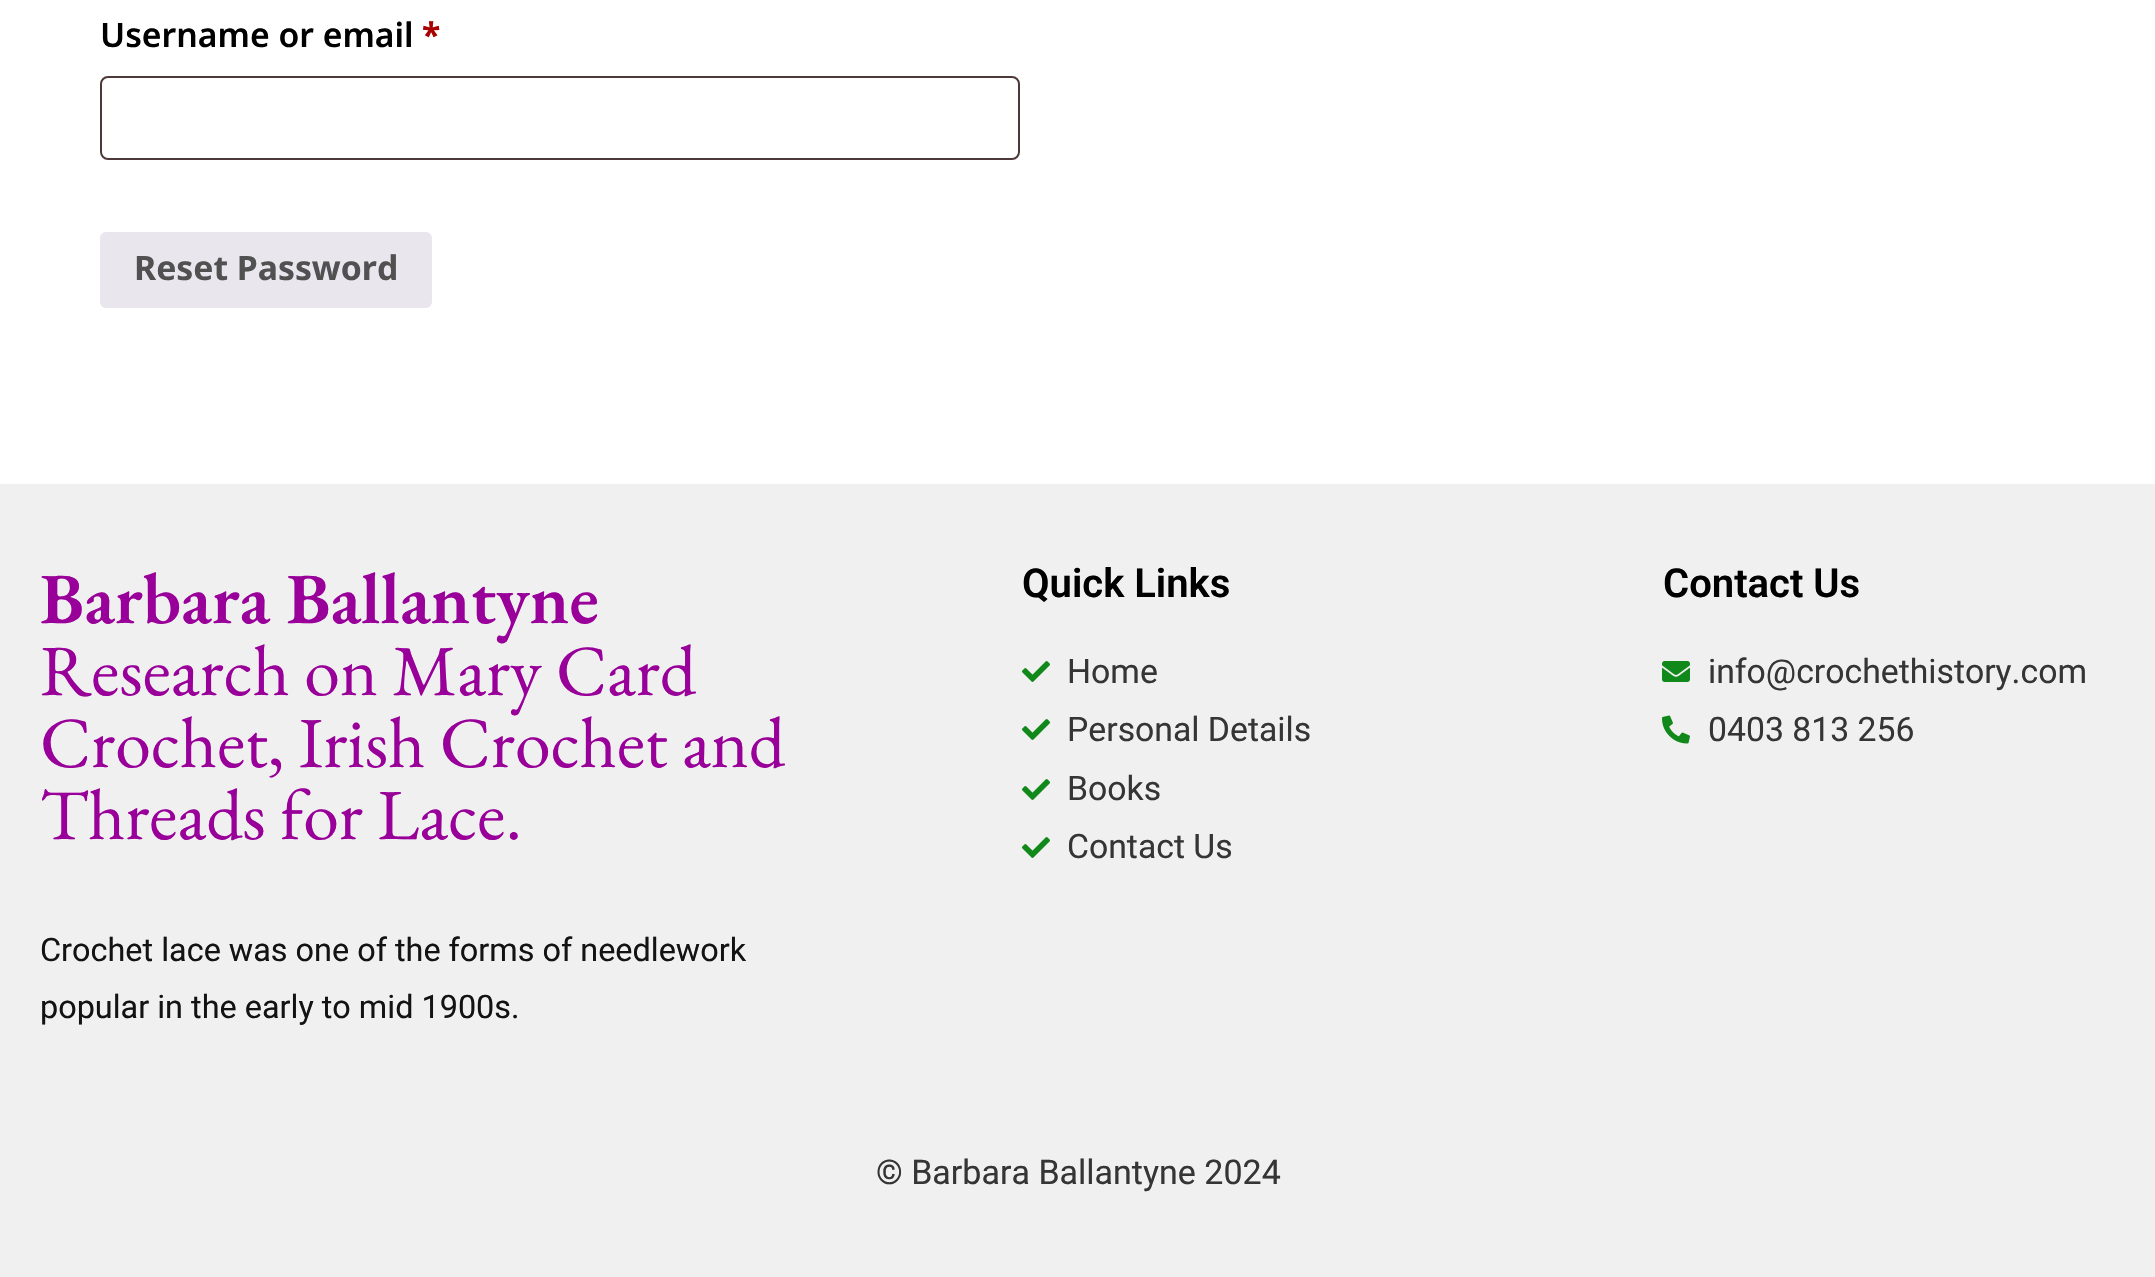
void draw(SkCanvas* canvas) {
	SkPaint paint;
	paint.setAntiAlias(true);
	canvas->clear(0xffffffff);
	SkFont f1(fontMgr->matchFamilyStyle("Noto Sans", SkFontStyle(600, SkFontStyle::kNormal_Width, SkFontStyle::kUpright_Slant)), 33.75);
	f1.setSubpixel(true);
	paint.setColor(0xff000000);
	canvas->drawString("Username or email", 100, 47, f1, paint);
	SkFont f2(fontMgr->matchFamilyStyle("Noto Sans", SkFontStyle::Bold()), 33.75);
	f2.setSubpixel(true);
	paint.setColor(0xffaa0000);
	canvas->drawString("*", 422, 47, f2, paint);
	paint.setStroke(true);
	paint.setStrokeWidth(2);
	paint.setColor(0xff4d3939);
	canvas->drawRoundRect(SkRect::MakeXYWH(101, 77, 918, 82), 7, 7, paint);
	paint.setStroke(false);
	paint.setColor(0xffe9e6ed);
	canvas->drawRoundRect(SkRect::MakeXYWH(100, 232, 332, 76), 6, 6, paint);
	paint.setColor(0xff515151);
	canvas->drawString("Reset Password", 134, 280, f2, paint);
	paint.setColor(0xfff0f0f0);
	canvas->drawRect(SkRect::MakeXYWH(0, 484, 2155, 793), paint);
	SkFont f3(fontMgr->matchFamilyStyle("EB Garamond", SkFontStyle(600, SkFontStyle::kNormal_Width, SkFontStyle::kUpright_Slant)), 72);
	f3.setSubpixel(true);
	paint.setColor(0xff990099);
	canvas->drawString("Barbara Ballantyne", 40, 623, f3, paint);
	SkFont f4(fontMgr->matchFamilyStyle("EB Garamond", SkFontStyle::Normal()), 72);
	f4.setSubpixel(true);
	canvas->drawString("Research on Mary Card", 40, 695, f4, paint);
	canvas->drawString("Crochet, Irish Crochet and", 40, 767, f4, paint);
	canvas->drawString("Threads for Lace.", 40, 839, f4, paint);
	SkFont f5(fontMgr->matchFamilyStyle("Roboto", SkFontStyle::Normal()), 32.4);
	f5.setSubpixel(true);
	paint.setColor(0xff131313);
	canvas->drawString("Crochet lace was one of the forms of needlework", 40, 961, f5, paint);
	canvas->drawString("popular in the early to mid 1900s.", 40, 1018, f5, paint);
	SkFont f6(fontMgr->matchFamilyStyle("Roboto", SkFontStyle(600, SkFontStyle::kNormal_Width, SkFontStyle::kUpright_Slant)), 40);
	f6.setSubpixel(true);
	paint.setColor(0xff000000);
	canvas->drawString("Quick Links", 1022, 597, f6, paint);
	canvas->drawImageRect(SkImages::DeferredFromEncodedData(SkData::MakeFromFileName("img1.png")), SkRect::MakeXYWH(1022, 661, 28, 21), SkSamplingOptions());
	SkFont f7(fontMgr->matchFamilyStyle("Roboto", SkFontStyle::Normal()), 33.75);
	f7.setSubpixel(true);
	paint.setColor(0xff353535);
	canvas->drawString("Home", 1067, 683, f7, paint);
	canvas->drawImageRect(SkImages::DeferredFromEncodedData(SkData::MakeFromFileName("img1.png")), SkRect::MakeXYWH(1022, 719, 28, 21), SkSamplingOptions());
	canvas->drawString("Personal Details", 1067, 741, f7, paint);
	canvas->drawImageRect(SkImages::DeferredFromEncodedData(SkData::MakeFromFileName("img1.png")), SkRect::MakeXYWH(1022, 779, 28, 21), SkSamplingOptions());
	canvas->drawString("Books", 1067, 800, f7, paint);
	canvas->drawImageRect(SkImages::DeferredFromEncodedData(SkData::MakeFromFileName("img1.png")), SkRect::MakeXYWH(1022, 837, 28, 21), SkSamplingOptions());
	canvas->drawString("Contact Us", 1067, 858, f7, paint);
	paint.setColor(0xff000000);
	canvas->drawString("Contact Us", 1663, 597, f6, paint);
	canvas->drawImageRect(SkImages::DeferredFromEncodedData(SkData::MakeFromFileName("img2.png")), SkRect::MakeXYWH(1662, 661, 28, 21), SkSamplingOptions());
	paint.setColor(0xff353535);
	canvas->drawString("info@crochethistory.com", 1708, 683, f7, paint);
	canvas->drawImageRect(SkImages::DeferredFromEncodedData(SkData::MakeFromFileName("img3.png")), SkRect::MakeXYWH(1662, 715, 28, 29), SkSamplingOptions());
	canvas->drawString("0403 813 256", 1708, 741, f7, paint);
	SkFont f8(fontMgr->matchFamilyStyle("Roboto", SkFontStyle::Normal()), 34);
	f8.setSubpixel(true);
	canvas->drawString("© Barbara Ballantyne 2024", 876, 1184, f8, paint);
}
